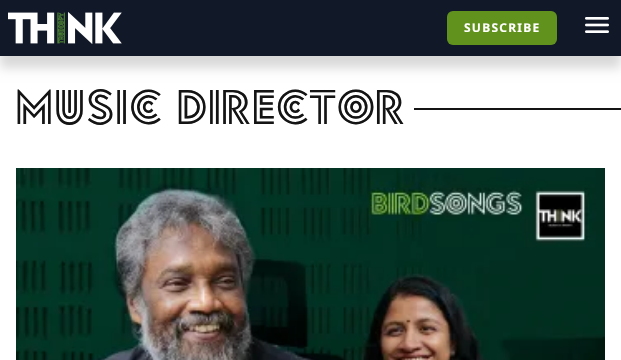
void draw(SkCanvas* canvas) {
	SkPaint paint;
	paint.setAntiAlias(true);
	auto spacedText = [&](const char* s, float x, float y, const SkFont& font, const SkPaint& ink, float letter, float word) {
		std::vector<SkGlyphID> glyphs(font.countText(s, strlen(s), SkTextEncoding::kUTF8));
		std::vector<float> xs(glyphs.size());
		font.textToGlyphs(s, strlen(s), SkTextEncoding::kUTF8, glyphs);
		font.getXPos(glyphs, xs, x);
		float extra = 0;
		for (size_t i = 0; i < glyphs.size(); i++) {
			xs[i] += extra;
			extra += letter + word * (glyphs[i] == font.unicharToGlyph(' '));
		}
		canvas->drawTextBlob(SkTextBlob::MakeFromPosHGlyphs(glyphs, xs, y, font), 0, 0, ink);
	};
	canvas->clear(0xffffffff);
	paint.setColor(0x26000000);
	paint.setMaskFilter(SkMaskFilter::MakeBlur(kNormal_SkBlurStyle, 5));
	canvas->drawRect(SkRect::MakeXYWH(0, 12, 621, 56), paint);
	paint.setMaskFilter(nullptr);
	paint.setColor(0xff111827);
	canvas->drawRect(SkRect::MakeXYWH(0, 0, 621, 56), paint);
	canvas->drawImageRect(SkImages::DeferredFromEncodedData(SkData::MakeFromFileName("img1.png")), SkRect::MakeXYWH(8, 12, 114, 32), SkSamplingOptions());
	paint.setColor(0xff62921e);
	canvas->drawRoundRect(SkRect::MakeXYWH(447, 11, 110, 34), 6, 6, paint);
	SkFont f1(fontMgr->matchFamilyStyle("Noto Sans", SkFontStyle::Bold()), 12);
	f1.setSubpixel(true);
	paint.setColor(0xffffffff);
	spacedText("SUBSCRIBE", 464, 32, f1, paint, 1.25, 0);
	canvas->drawImageRect(SkImages::DeferredFromEncodedData(SkData::MakeFromFileName("img2.png")), SkRect::MakeXYWH(585, 17, 24, 16), SkSamplingOptions());
	SkFont f2(fontMgr->matchFamilyStyle("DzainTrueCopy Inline", SkFontStyle(300, SkFontStyle::kNormal_Width, SkFontStyle::kUpright_Slant)), 48);
	f2.setSubpixel(true);
	paint.setColor(0xff141414);
	spacedText("music director", 16, 124, f2, paint, 2.4, 0);
	canvas->drawRect(SkRect::MakeXYWH(414, 108, 207, 2), paint);
	canvas->drawImageRect(SkImages::DeferredFromEncodedData(SkData::MakeFromFileName("img3.png")), SkRect::MakeXYWH(16, 168, 589, 192), SkSamplingOptions());
}
